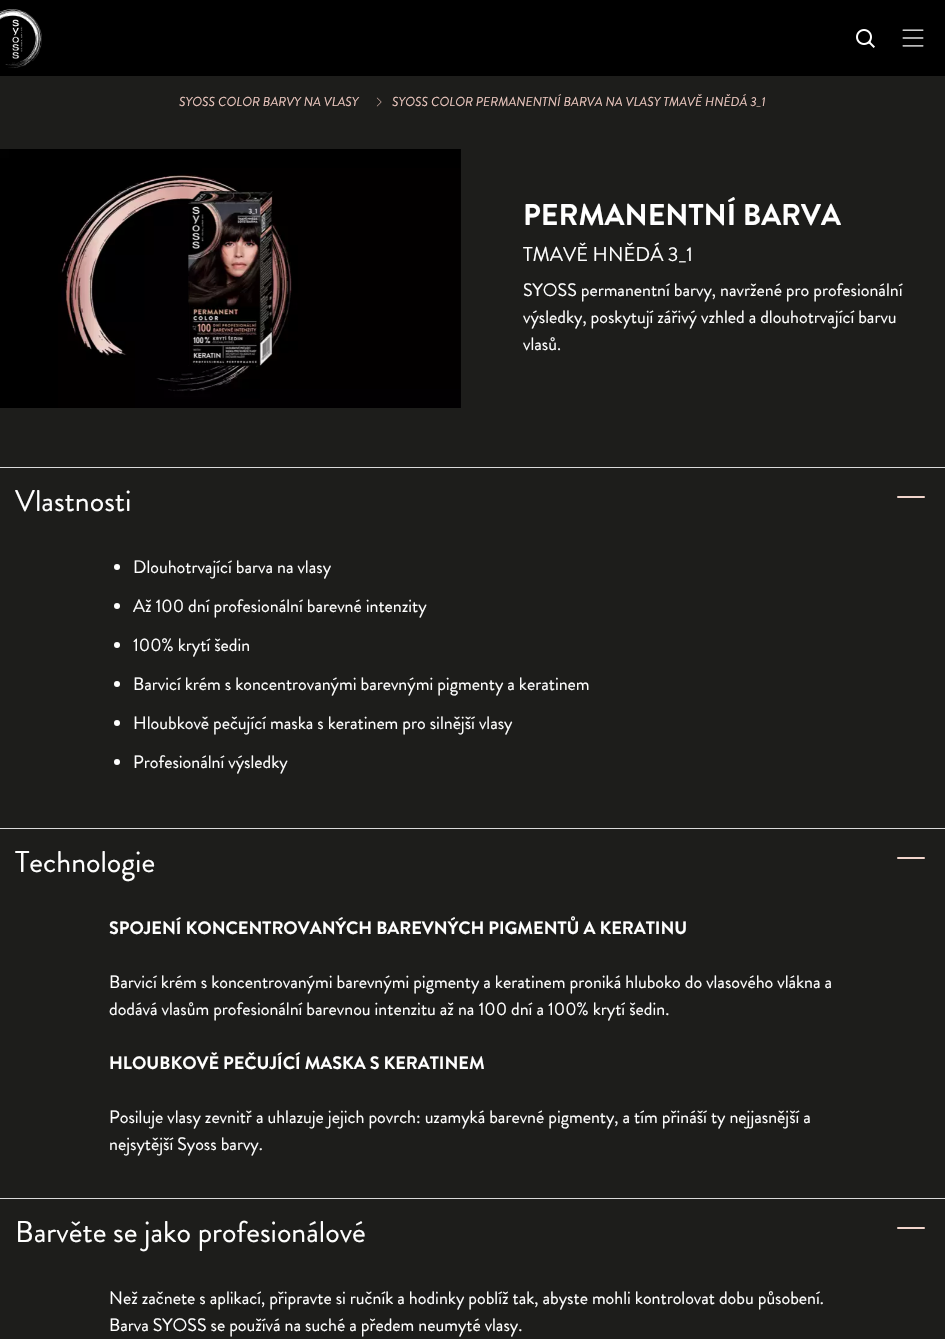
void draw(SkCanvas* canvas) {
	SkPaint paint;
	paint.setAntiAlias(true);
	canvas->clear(0xff000000);
	canvas->drawImageRect(SkImages::DeferredFromEncodedData(SkData::MakeFromFileName("img1.png")), SkRect::MakeXYWH(0, 9, 42, 59), SkSamplingOptions());
	canvas->drawImageRect(SkImages::DeferredFromEncodedData(SkData::MakeFromFileName("img2.png")), SkRect::MakeXYWH(856, 29, 19, 19), SkSamplingOptions());
	canvas->drawImageRect(SkImages::DeferredFromEncodedData(SkData::MakeFromFileName("img3.png")), SkRect::MakeXYWH(902, 29, 22, 18), SkSamplingOptions());
	paint.setColor(0xff1d1d1b);
	canvas->drawRect(SkRect::MakeXYWH(0, 76, 945, 391), paint);
	SkFont f1(fontMgr->matchFamilyStyle("Brandon Grotesque", SkFontStyle::Italic()), 13);
	f1.setSubpixel(true);
	paint.setColor(0xffeac6be);
	canvas->drawString("SYOSS COLOR BARVY NA VLASY", 179, 106, f1, paint);
	canvas->drawImageRect(SkImages::DeferredFromEncodedData(SkData::MakeFromFileName("img4.png")), SkRect::MakeXYWH(376, 97, 6, 10), SkSamplingOptions());
	canvas->drawString("SYOSS COLOR PERMANENTNÍ BARVA NA VLASY TMAVĚ HNĚDÁ 3_1", 392, 106, f1, paint);
	canvas->drawImageRect(SkImages::DeferredFromEncodedData(SkData::MakeFromFileName("img5.png")), SkRect::MakeXYWH(0, 149, 461, 259), SkSamplingOptions());
	canvas->drawImageRect(SkImages::DeferredFromEncodedData(SkData::MakeFromFileName("img6.png")), SkRect::MakeXYWH(188, 190, 86, 177), SkSamplingOptions());
	SkFont f2(fontMgr->matchFamilyStyle("Brandon Grotesque", SkFontStyle::Bold()), 30);
	f2.setSubpixel(true);
	paint.setColor(0xffffffff);
	canvas->drawString("PERMANENTNÍ BARVA", 523, 225, f2, paint);
	SkFont f3(fontMgr->matchFamilyStyle("Brandon Grotesque", SkFontStyle::Normal()), 20);
	f3.setSubpixel(true);
	canvas->drawString("TMAVĚ HNĚDÁ 3_1", 523, 261, f3, paint);
	SkFont f4(fontMgr->matchFamilyStyle("Brandon Grotesque", SkFontStyle::Normal()), 18);
	f4.setSubpixel(true);
	canvas->drawString("SYOSS permanentní barvy, navržené pro profesionální", 523, 296, f4, paint);
	canvas->drawString("výsledky, poskytují zářivý vzhled a dlouhotrvající barvu", 523, 323, f4, paint);
	canvas->drawString("vlasů.", 523, 350, f4, paint);
	paint.setColor(0xff1d1d1b);
	canvas->drawRect(SkRect::MakeXYWH(0, 468, 945, 871), paint);
	paint.setColor(0xffdadada);
	canvas->drawRect(SkRect::MakeXYWH(0, 467, 945, 1), paint);
	SkFont f5(fontMgr->matchFamilyStyle("Brandon Grotesque", SkFontStyle::Normal()), 30);
	f5.setSubpixel(true);
	paint.setColor(0xffffffff);
	canvas->drawString("Vlastnosti", 15, 511, f5, paint);
	paint.setColor(0xfff1d5cc);
	canvas->drawRoundRect(SkRect::MakeXYWH(897, 496, 28, 2), 1, 1, paint);
	paint.setColor(0xffffffff);
	canvas->drawCircle(117, 567, 3, paint);
	canvas->drawString("Dlouhotrvající barva na vlasy", 133, 573, f4, paint);
	canvas->drawCircle(117, 606, 3, paint);
	canvas->drawString("Až 100 dní profesionální barevné intenzity", 133, 612, f4, paint);
	canvas->drawCircle(117, 645, 3, paint);
	canvas->drawString("100% krytí šedin", 133, 651, f4, paint);
	canvas->drawCircle(117, 684, 3, paint);
	canvas->drawString("Barvicí krém s koncentrovanými barevnými pigmenty a keratinem", 133, 690, f4, paint);
	canvas->drawCircle(117, 723, 3, paint);
	canvas->drawString("Hloubkově pečující maska s keratinem pro silnější vlasy", 133, 729, f4, paint);
	canvas->drawCircle(117, 762, 3, paint);
	canvas->drawString("Profesionální výsledky", 133, 768, f4, paint);
	paint.setColor(0xffdadada);
	canvas->drawRect(SkRect::MakeXYWH(0, 828, 945, 1), paint);
	paint.setColor(0xffffffff);
	canvas->drawString("Technologie", 15, 872, f5, paint);
	paint.setColor(0xfff1d5cc);
	canvas->drawRoundRect(SkRect::MakeXYWH(897, 857, 28, 2), 1, 1, paint);
	SkFont f6(fontMgr->matchFamilyStyle("Brandon Grotesque", SkFontStyle::Bold()), 18);
	f6.setSubpixel(true);
	paint.setColor(0xffffffff);
	canvas->drawString("SPOJENÍ KONCENTROVANÝCH BAREVNÝCH PIGMENTŮ A KERATINU", 109, 934, f6, paint);
	canvas->drawString("Barvicí krém s koncentrovanými barevnými pigmenty a keratinem proniká hluboko do vlasového vlákna a", 109, 988, f4, paint);
	canvas->drawString("dodává vlasům profesionální barevnou intenzitu až na 100 dní a 100% krytí šedin.", 109, 1015, f4, paint);
	canvas->drawString("HLOUBKOVĚ PEČUJÍCÍ MASKA S KERATINEM", 109, 1069, f6, paint);
	canvas->drawString("Posiluje vlasy zevnitř a uhlazuje jejich povrch: uzamyká barevné pigmenty, a tím přináší ty nejjasnější a", 109, 1123, f4, paint);
	canvas->drawString("nejsytější Syoss barvy.", 109, 1150, f4, paint);
	paint.setColor(0xffdadada);
	canvas->drawRect(SkRect::MakeXYWH(0, 1198, 945, 1), paint);
	paint.setColor(0xffffffff);
	canvas->drawString("Barvěte se jako profesionálové", 15, 1242, f5, paint);
	paint.setColor(0xfff1d5cc);
	canvas->drawRoundRect(SkRect::MakeXYWH(897, 1227, 28, 2), 1, 1, paint);
	paint.setColor(0xffffffff);
	canvas->drawString("Než začnete s aplikací, připravte si ručník a hodinky poblíž tak, abyste mohli kontrolovat dobu působení.", 109, 1304, f4, paint);
	canvas->drawString("Barva SYOSS se používá na suché a předem neumyté vlasy.", 109, 1331, f4, paint);
}
